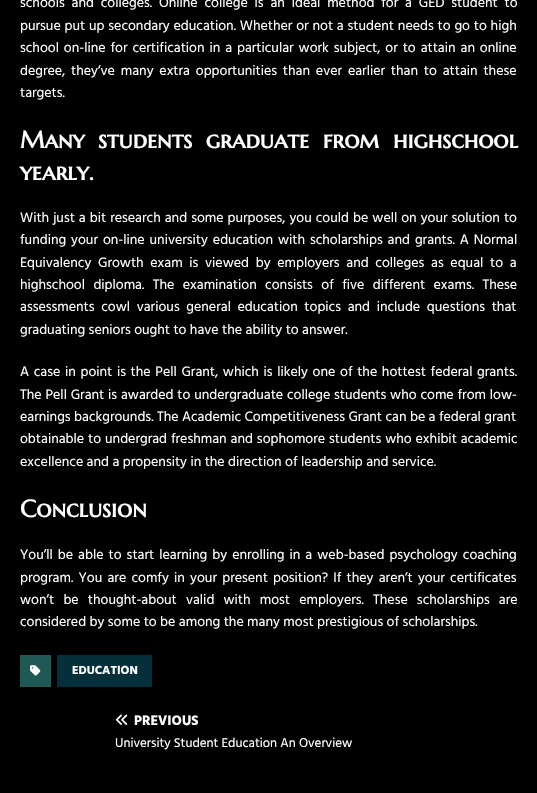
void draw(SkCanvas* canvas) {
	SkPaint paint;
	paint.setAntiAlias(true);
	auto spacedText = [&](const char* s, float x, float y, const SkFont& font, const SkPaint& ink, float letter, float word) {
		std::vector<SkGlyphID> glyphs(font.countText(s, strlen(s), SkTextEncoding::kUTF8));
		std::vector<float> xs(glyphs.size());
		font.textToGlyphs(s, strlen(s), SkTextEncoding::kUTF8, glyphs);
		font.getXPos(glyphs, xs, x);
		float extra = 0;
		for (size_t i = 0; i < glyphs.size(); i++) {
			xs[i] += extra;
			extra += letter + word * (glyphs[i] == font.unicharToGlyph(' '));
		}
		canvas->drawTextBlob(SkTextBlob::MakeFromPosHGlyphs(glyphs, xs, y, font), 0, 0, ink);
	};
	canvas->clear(0xff000000);
	SkFont f1(fontMgr->matchFamilyStyle("Hind", SkFontStyle::Normal()), 14);
	f1.setSubpixel(true);
	paint.setColor(0xffffffff);
	spacedText("schools and colleges. Online college is an ideal method for a GED student to", 20, 7, f1, paint, 0, 3.4);
	spacedText("pursue put up secondary education. Whether or not a student needs to go to high", 20, 30, f1, paint, 0, 0.4);
	spacedText("school on-line for certification in a particular work subject, or to attain an online", 20, 52, f1, paint, 0, 1.5);
	spacedText("degree, they’ve many extra opportunities than ever earlier than to attain these", 20, 75, f1, paint, 0, 2.4);
	canvas->drawString("targets.", 20, 97, f1, paint);
	SkFont f2(fontMgr->matchFamilyStyle("Marcellus SC", SkFontStyle::Bold()), 24);
	f2.setSubpixel(true);
	spacedText("Many students graduate from highschool", 20, 148, f2, paint, 0, 6.5);
	canvas->drawString("yearly.", 20, 180, f2, paint);
	spacedText("With just a bit research and some purposes, you could be well on your solution to", 20, 222, f1, paint, 0, 0.6);
	spacedText("funding your on-line university education with scholarships and grants. A Normal", 20, 244, f1, paint, 0, 1.5);
	spacedText("Equivalency Growth exam is viewed by employers and colleges as equal to a", 20, 267, f1, paint, 0, 3.25);
	spacedText("highschool diploma. The examination consists of five different exams. These", 20, 289, f1, paint, 0, 5);
	spacedText("assessments cowl various general education topics and include questions that", 20, 311, f1, paint, 0, 3.25);
	canvas->drawString("graduating seniors ought to have the ability to answer.", 20, 334, f1, paint);
	spacedText("A case in point is the Pell Grant, which is likely one of the hottest federal grants.", 20, 376, f1, paint, 0, 1.25);
	spacedText("The Pell Grant is awarded to undergraduate college students who come from low-", 20, 399, f1, paint, 0, 0.4);
	canvas->drawString("earnings backgrounds. The Academic Competitiveness Grant can be a federal grant", 20, 421, f1, paint);
	spacedText("obtainable to undergrad freshman and sophomore students who exhibit academic", 20, 443, f1, paint, 0, 0.5);
	canvas->drawString("excellence and a propensity in the direction of leadership and service.", 20, 466, f1, paint);
	canvas->drawString("Conclusion", 20, 517, f2, paint);
	spacedText("You’ll be able to start learning by enrolling in a web-based psychology coaching", 20, 559, f1, paint, 0, 1.6);
	spacedText("program. You are comfy in your present position? If they aren’t your certificates", 20, 582, f1, paint, 0, 1.8);
	spacedText("won’t be thought-about valid with most employers. These scholarships are", 20, 604, f1, paint, 0, 5.75);
	canvas->drawString("considered by some to be among the many most prestigious of scholarships.", 20, 626, f1, paint);
	paint.setColor(0xff205855);
	canvas->drawRect(SkRect::MakeXYWH(20, 655, 31, 32), paint);
	canvas->drawImageRect(SkImages::DeferredFromEncodedData(SkData::MakeFromFileName("img1.png")), SkRect::MakeXYWH(30, 665, 11, 11), SkSamplingOptions());
	paint.setColor(0xff052f3b);
	canvas->drawRect(SkRect::MakeXYWH(57, 655, 95, 32), paint);
	SkFont f3(fontMgr->matchFamilyStyle("Hind", SkFontStyle::Bold()), 12);
	f3.setSubpixel(true);
	paint.setColor(0xffffffff);
	canvas->drawString("EDUCATION", 72, 674, f3, paint);
	canvas->drawImageRect(SkImages::DeferredFromEncodedData(SkData::MakeFromFileName("img2.png")), SkRect::MakeXYWH(115, 714, 13, 11), SkSamplingOptions());
	SkFont f4(fontMgr->matchFamilyStyle("Hind", SkFontStyle::Bold()), 14);
	f4.setSubpixel(true);
	canvas->drawString("PREVIOUS", 134, 725, f4, paint);
	SkFont f5(fontMgr->matchFamilyStyle("Hind", SkFontStyle::Normal()), 13);
	f5.setSubpixel(true);
	canvas->drawString("University Student Education An Overview", 115, 747, f5, paint);
}
